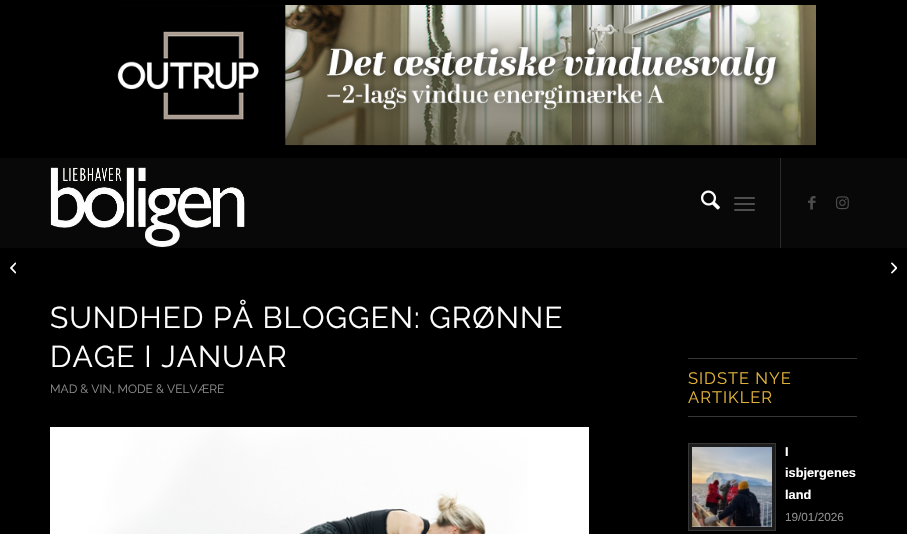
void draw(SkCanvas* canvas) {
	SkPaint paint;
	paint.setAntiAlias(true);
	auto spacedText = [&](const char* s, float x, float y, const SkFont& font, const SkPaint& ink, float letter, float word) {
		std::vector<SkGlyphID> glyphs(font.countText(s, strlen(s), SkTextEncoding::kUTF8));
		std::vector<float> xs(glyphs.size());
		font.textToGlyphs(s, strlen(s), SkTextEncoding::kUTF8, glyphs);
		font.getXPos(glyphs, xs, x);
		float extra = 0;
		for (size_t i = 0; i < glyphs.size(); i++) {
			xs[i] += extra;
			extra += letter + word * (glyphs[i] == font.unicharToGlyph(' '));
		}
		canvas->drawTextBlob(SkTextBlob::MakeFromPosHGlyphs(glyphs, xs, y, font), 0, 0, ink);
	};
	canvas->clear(0xff000000);
	canvas->drawImageRect(SkImages::DeferredFromEncodedData(SkData::MakeFromFileName("img1.png")), SkRect::MakeXYWH(117, 5, 699, 141), SkSamplingOptions());
	paint.setColor(0xff080808);
	canvas->drawRect(SkRect::MakeXYWH(0, 158, 907, 90), paint);
	canvas->drawImageRect(SkImages::DeferredFromEncodedData(SkData::MakeFromFileName("img2.png")), SkRect::MakeXYWH(50, 167, 195, 80), SkSamplingOptions());
	paint.setColor(0xff2b2b2b);
	canvas->drawRect(SkRect::MakeXYWH(780, 158, 1, 90), paint);
	canvas->drawImageRect(SkImages::DeferredFromEncodedData(SkData::MakeFromFileName("img3.png")), SkRect::MakeXYWH(701, 190, 19, 20), SkSamplingOptions());
	paint.setColor(0xff4d4d4d);
	canvas->drawRoundRect(SkRect::MakeXYWH(734, 203, 21, 2), 1, 1, paint);
	canvas->drawRoundRect(SkRect::MakeXYWH(734, 197, 21, 2), 1, 1, paint);
	canvas->drawRoundRect(SkRect::MakeXYWH(734, 209, 21, 2), 1, 1, paint);
	canvas->drawImageRect(SkImages::DeferredFromEncodedData(SkData::MakeFromFileName("img4.png")), SkRect::MakeXYWH(808, 196, 8, 14), SkSamplingOptions());
	canvas->drawImageRect(SkImages::DeferredFromEncodedData(SkData::MakeFromFileName("img5.png")), SkRect::MakeXYWH(836, 196, 13, 14), SkSamplingOptions());
	canvas->drawImageRect(SkImages::DeferredFromEncodedData(SkData::MakeFromFileName("img6.png")), SkRect::MakeXYWH(10, 262, 6, 12), SkSamplingOptions());
	canvas->drawImageRect(SkImages::DeferredFromEncodedData(SkData::MakeFromFileName("img7.png")), SkRect::MakeXYWH(891, 262, 6, 12), SkSamplingOptions());
	SkFont f1(fontMgr->matchFamilyStyle("Raleway", SkFontStyle(100, SkFontStyle::kNormal_Width, SkFontStyle::kUpright_Slant)), 30);
	f1.setSubpixel(true);
	paint.setColor(0xffffffff);
	spacedText("SUNDHED PÅ BLOGGEN: GRØNNE", 50, 328, f1, paint, 1, 0);
	spacedText("DAGE I JANUAR", 50, 367, f1, paint, 1, 0);
	SkFont f2(fontMgr->matchFamilyStyle("Raleway", SkFontStyle(100, SkFontStyle::kNormal_Width, SkFontStyle::kUpright_Slant)), 12);
	f2.setSubpixel(true);
	paint.setColor(0xff8c8c8c);
	canvas->drawString("MAD & VIN, MODE & VELVÆRE", 50, 393, f2, paint);
	canvas->drawImageRect(SkImages::DeferredFromEncodedData(SkData::MakeFromFileName("img8.png")), SkRect::MakeXYWH(50, 427, 539, 107), SkSamplingOptions());
	paint.setColor(0xff363636);
	canvas->drawRect(SkRect::MakeXYWH(688, 358, 169, 1), paint);
	canvas->drawRect(SkRect::MakeXYWH(688, 416, 169, 1), paint);
	SkFont f3(fontMgr->matchFamilyStyle("Raleway", SkFontStyle(100, SkFontStyle::kNormal_Width, SkFontStyle::kUpright_Slant)), 16.5);
	f3.setSubpixel(true);
	paint.setColor(0xffe0b13a);
	spacedText("SIDSTE NYE", 688, 384, f3, paint, 1, 0);
	spacedText("ARTIKLER", 688, 403, f3, paint, 1, 0);
	paint.setColor(0xff1d1d1d);
	canvas->drawRect(SkRect::MakeXYWH(688.5, 443.5, 87, 87), paint);
	paint.setStroke(true);
	paint.setStrokeWidth(1);
	paint.setColor(0xff363636);
	canvas->drawRect(SkRect::MakeXYWH(688.5, 443.5, 87, 87), paint);
	canvas->drawImageRect(SkImages::DeferredFromEncodedData(SkData::MakeFromFileName("img9.png")), SkRect::MakeXYWH(692, 447, 80, 80), SkSamplingOptions());
	SkFont f4(fontMgr->matchFamilyStyle("Liberation Sans", SkFontStyle::Bold()), 12.75);
	f4.setSubpixel(true);
	paint.setStroke(false);
	paint.setColor(0xffffffff);
	canvas->drawString("I", 785, 456, f4, paint);
	canvas->drawString("isbjergenes", 785, 477, f4, paint);
	canvas->drawString("land", 785, 499, f4, paint);
	SkFont f5(fontMgr->matchFamilyStyle("Liberation Sans", SkFontStyle::Normal()), 11.75);
	f5.setSubpixel(true);
	paint.setColor(0xff8c8c8c);
	canvas->drawString("19/01/2026", 785, 521, f5, paint);
}
